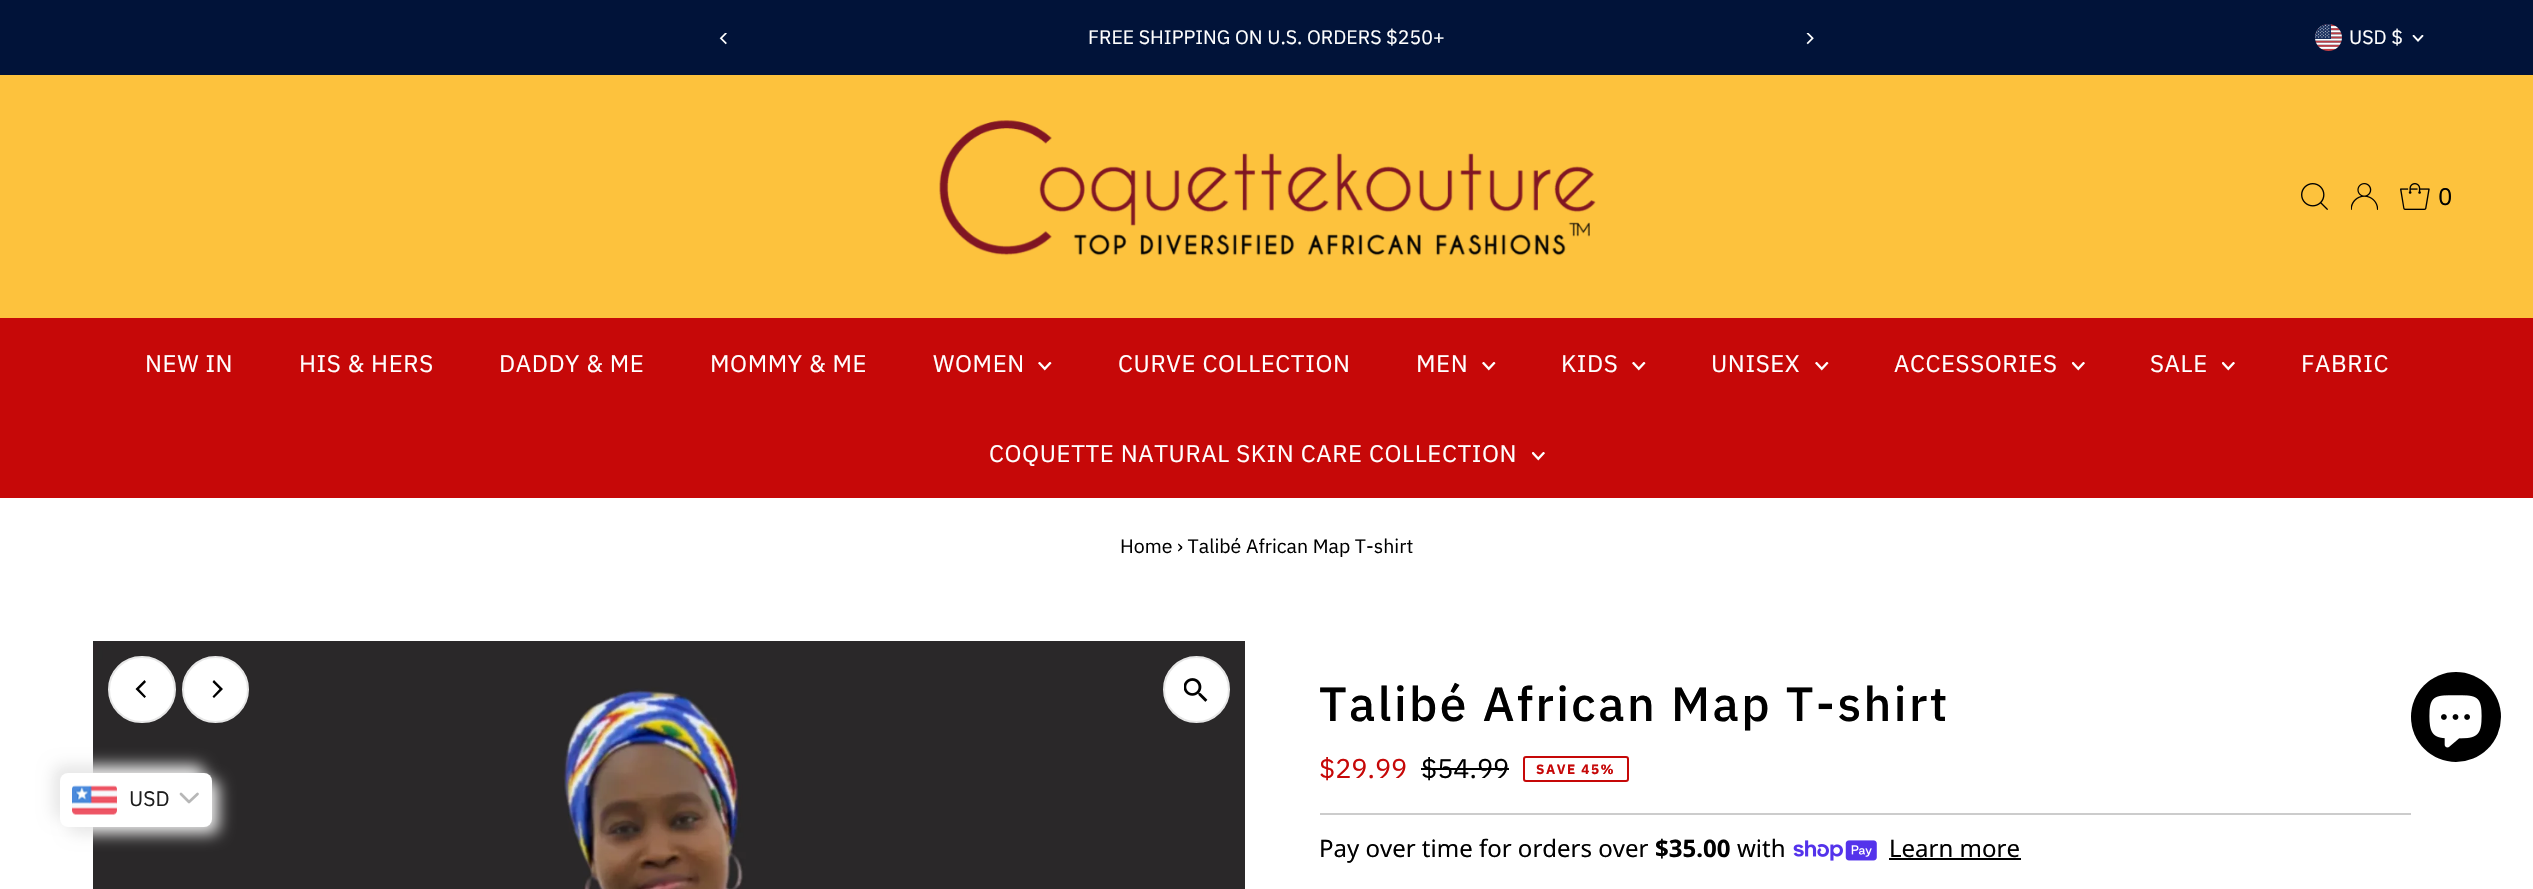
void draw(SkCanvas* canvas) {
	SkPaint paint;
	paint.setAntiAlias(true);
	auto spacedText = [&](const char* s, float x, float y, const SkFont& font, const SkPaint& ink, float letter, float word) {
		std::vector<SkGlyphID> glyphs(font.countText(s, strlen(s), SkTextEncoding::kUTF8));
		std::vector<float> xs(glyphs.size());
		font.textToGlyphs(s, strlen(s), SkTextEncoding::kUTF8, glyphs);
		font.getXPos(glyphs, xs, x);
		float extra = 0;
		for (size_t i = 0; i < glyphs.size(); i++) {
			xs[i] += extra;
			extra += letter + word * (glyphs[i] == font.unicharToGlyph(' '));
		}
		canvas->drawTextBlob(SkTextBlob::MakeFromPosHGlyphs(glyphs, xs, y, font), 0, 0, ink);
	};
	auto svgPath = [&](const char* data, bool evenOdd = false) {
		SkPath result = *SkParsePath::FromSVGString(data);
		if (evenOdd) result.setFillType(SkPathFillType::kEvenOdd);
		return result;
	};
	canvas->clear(0xffffffff);
	paint.setColor(0xff011339);
	canvas->drawRect(SkRect::MakeXYWH(0, 0, 2533, 75), paint);
	canvas->drawImageRect(SkImages::DeferredFromEncodedData(SkData::MakeFromFileName("img1.png")), SkRect::MakeXYWH(719, 33, 8, 12), SkSamplingOptions());
	SkFont f1(fontMgr->matchFamilyStyle("IBM Plex Sans", SkFontStyle::Normal()), 19.5);
	f1.setSubpixel(true);
	paint.setColor(0xffffffff);
	canvas->drawString("FREE SHIPPING ON U.S. ORDERS $250+", 1088, 44, f1, paint);
	canvas->drawImageRect(SkImages::DeferredFromEncodedData(SkData::MakeFromFileName("img2.png")), SkRect::MakeXYWH(1806, 33, 8, 12), SkSamplingOptions());
	canvas->drawImageRect(SkImages::DeferredFromEncodedData(SkData::MakeFromFileName("img3.png")), SkRect::MakeXYWH(2315, 24, 27, 27), SkSamplingOptions());
	canvas->drawString("USD $", 2349, 44, f1, paint);
	canvas->drawImageRect(SkImages::DeferredFromEncodedData(SkData::MakeFromFileName("img4.png")), SkRect::MakeXYWH(2412, 35, 12, 7), SkSamplingOptions());
	paint.setColor(0xfffdc23d);
	canvas->drawRect(SkRect::MakeXYWH(0, 75, 2533, 243), paint);
	canvas->drawImageRect(SkImages::DeferredFromEncodedData(SkData::MakeFromFileName("img5.png")), SkRect::MakeXYWH(939, 120, 657, 136), SkSamplingOptions());
	canvas->drawImageRect(SkImages::DeferredFromEncodedData(SkData::MakeFromFileName("img6.png")), SkRect::MakeXYWH(2301, 183, 27, 27), SkSamplingOptions());
	canvas->drawImageRect(SkImages::DeferredFromEncodedData(SkData::MakeFromFileName("img7.png")), SkRect::MakeXYWH(2351, 183, 27, 27), SkSamplingOptions());
	canvas->drawImageRect(SkImages::DeferredFromEncodedData(SkData::MakeFromFileName("img8.png")), SkRect::MakeXYWH(2400, 183, 30, 27), SkSamplingOptions());
	SkFont f2(fontMgr->matchFamilyStyle("IBM Plex Sans", SkFontStyle::Normal()), 24);
	f2.setSubpixel(true);
	paint.setColor(0xff000000);
	canvas->drawString("0", 2438, 205, f2, paint);
	paint.setColor(0xffc60808);
	canvas->drawRect(SkRect::MakeXYWH(0, 318, 2533, 180), paint);
	paint.setColor(0xffffffff);
	spacedText("NEW IN", 145, 372, f2, paint, 0.6, 0);
	spacedText("HIS & HERS", 299, 372, f2, paint, 0.6, 0);
	spacedText("DADDY & ME", 499, 372, f2, paint, 0.6, 0);
	spacedText("MOMMY & ME", 710, 372, f2, paint, 0.6, 0);
	spacedText("WOMEN", 933, 372, f2, paint, 0.6, 0);
	canvas->drawImageRect(SkImages::DeferredFromEncodedData(SkData::MakeFromFileName("img9.png")), SkRect::MakeXYWH(1038, 362, 14, 9), SkSamplingOptions());
	spacedText("CURVE COLLECTION", 1118, 372, f2, paint, 0.6, 0);
	spacedText("MEN", 1416, 372, f2, paint, 0.6, 0);
	canvas->drawImageRect(SkImages::DeferredFromEncodedData(SkData::MakeFromFileName("img9.png")), SkRect::MakeXYWH(1482, 362, 14, 9), SkSamplingOptions());
	spacedText("KIDS", 1561, 372, f2, paint, 0.6, 0);
	canvas->drawImageRect(SkImages::DeferredFromEncodedData(SkData::MakeFromFileName("img9.png")), SkRect::MakeXYWH(1632, 362, 14, 9), SkSamplingOptions());
	spacedText("UNISEX", 1711, 372, f2, paint, 0.6, 0);
	canvas->drawImageRect(SkImages::DeferredFromEncodedData(SkData::MakeFromFileName("img9.png")), SkRect::MakeXYWH(1815, 362, 14, 9), SkSamplingOptions());
	spacedText("ACCESSORIES", 1894, 372, f2, paint, 0.6, 0);
	canvas->drawImageRect(SkImages::DeferredFromEncodedData(SkData::MakeFromFileName("img10.png")), SkRect::MakeXYWH(2072, 362, 13, 9), SkSamplingOptions());
	spacedText("SALE", 2150, 372, f2, paint, 0.6, 0);
	canvas->drawImageRect(SkImages::DeferredFromEncodedData(SkData::MakeFromFileName("img10.png")), SkRect::MakeXYWH(2222, 362, 13, 9), SkSamplingOptions());
	spacedText("FABRIC", 2301, 372, f2, paint, 0.6, 0);
	spacedText("COQUETTE NATURAL SKIN CARE COLLECTION", 989, 462, f2, paint, 0.6, 0);
	canvas->drawImageRect(SkImages::DeferredFromEncodedData(SkData::MakeFromFileName("img10.png")), SkRect::MakeXYWH(1532, 452, 13, 9), SkSamplingOptions());
	paint.setColor(0xff000000);
	canvas->drawString("Home › Talibé African Map T-shirt", 1120, 553, f1, paint);
	canvas->drawImageRect(SkImages::DeferredFromEncodedData(SkData::MakeFromFileName("img11.png")), SkRect::MakeXYWH(93, 641, 1152, 248), SkSamplingOptions());
	paint.setColor(0xffffffff);
	canvas->drawCircle(1196.5, 689.5, 32.5, paint);
	paint.setStroke(true);
	paint.setStrokeWidth(2);
	paint.setColor(0xffe7e7e7);
	canvas->drawCircle(1196.5, 689.5, 32.5, paint);
	canvas->drawImageRect(SkImages::DeferredFromEncodedData(SkData::MakeFromFileName("img12.png")), SkRect::MakeXYWH(1184, 678, 24, 24), SkSamplingOptions());
	paint.setStroke(false);
	paint.setColor(0xffffffff);
	canvas->drawRoundRect(SkRect::MakeXYWH(109, 657, 66, 65), 32.5, 32.5, paint);
	paint.setStroke(true);
	paint.setColor(0xffe7e7e7);
	canvas->drawRoundRect(SkRect::MakeXYWH(109, 657, 66, 65), 32.5, 32.5, paint);
	paint.setStroke(false);
	paint.setColor(0xff000000);
	canvas->drawPath(svgPath("M135.5 689L144.5 698L146 696.5L139 689L146 682L144.5 680Z"), paint);
	paint.setColor(0xffffffff);
	canvas->drawCircle(215.5, 689.5, 32.5, paint);
	paint.setStroke(true);
	paint.setColor(0xffe7e7e7);
	canvas->drawCircle(215.5, 689.5, 32.5, paint);
	paint.setStroke(false);
	paint.setColor(0xff000000);
	canvas->drawPath(svgPath("M223 689L214 680L212.5 682L219.5 689L212.5 696.5L214 698Z"), paint);
	SkFont f3(fontMgr->matchFamilyStyle("IBM Plex Sans", SkFontStyle(500, SkFontStyle::kNormal_Width, SkFontStyle::kUpright_Slant)), 48);
	f3.setSubpixel(true);
	spacedText("Talibé African Map T-shirt", 1319, 721, f3, paint, 2.4, 0);
	paint.setColor(0xffcccccc);
	canvas->drawRect(SkRect::MakeXYWH(1320, 813, 1091, 2), paint);
	SkFont f4(fontMgr->matchFamilyStyle("IBM Plex Sans", SkFontStyle::Normal()), 27);
	f4.setSubpixel(true);
	paint.setColor(0xffc60808);
	canvas->drawString("$29.99", 1319, 778, f4, paint);
	paint.setColor(0xff000000);
	canvas->drawString("$54.99", 1421, 778, f4, paint);
	canvas->drawRect(SkRect::MakeXYWH(1421, 768, 88, 2), paint);
	paint.setStroke(true);
	paint.setColor(0xffc60808);
	canvas->drawRoundRect(SkRect::MakeXYWH(1524, 757, 104, 24), 2, 2, paint);
	SkFont f5(fontMgr->matchFamilyStyle("IBM Plex Sans", SkFontStyle::Bold()), 13.5);
	f5.setSubpixel(true);
	paint.setStroke(false);
	spacedText("SAVE 45%", 1536, 774, f5, paint, 1.5, 0);
	SkFont f6(fontMgr->matchFamilyStyle("Noto Sans", SkFontStyle::Normal()), 24);
	f6.setSubpixel(true);
	paint.setColor(0xff000000);
	canvas->drawString("Pay over time for orders over", 1319, 857, f6, paint);
	SkFont f7(fontMgr->matchFamilyStyle("Noto Sans", SkFontStyle::Bold()), 24);
	f7.setSubpixel(true);
	canvas->drawString("$35.00", 1655, 857, f7, paint);
	canvas->drawString("with", 1737, 857, f6, paint);
	canvas->drawImageRect(SkImages::DeferredFromEncodedData(SkData::MakeFromFileName("img13.png")), SkRect::MakeXYWH(1793, 840, 84, 21), SkSamplingOptions());
	canvas->drawString("Learn more", 1889, 857, f6, paint);
	canvas->drawRect(SkRect::MakeXYWH(1889, 858, 132, 2), paint);
	canvas->drawCircle(2456, 717, 45, paint);
	canvas->drawImageRect(SkImages::DeferredFromEncodedData(SkData::MakeFromFileName("img14.png")), SkRect::MakeXYWH(2429, 695, 53, 53), SkSamplingOptions());
	paint.setColor(0xffe8e8e8);
	paint.setMaskFilter(SkMaskFilter::MakeBlur(kNormal_SkBlurStyle, 7.5));
	canvas->drawRoundRect(SkRect::MakeXYWH(53, 765, 151, 54), 8, 8, paint);
	paint.setMaskFilter(nullptr);
	paint.setMaskFilter(SkMaskFilter::MakeBlur(kNormal_SkBlurStyle, 7.5));
	canvas->drawRoundRect(SkRect::MakeXYWH(68, 780, 151, 54), 8, 8, paint);
	paint.setMaskFilter(nullptr);
	paint.setColor(0xffffffff);
	canvas->drawRoundRect(SkRect::MakeXYWH(60, 773, 152, 54), 8, 8, paint);
	canvas->drawImageRect(SkImages::DeferredFromEncodedData(SkData::MakeFromFileName("img15.png")), SkRect::MakeXYWH(72, 785, 45, 30), SkSamplingOptions());
	SkFont f8(fontMgr->matchFamilyStyle("IBM Plex Sans", SkFontStyle::Normal()), 21);
	f8.setSubpixel(true);
	paint.setColor(0xff1e1e1e);
	canvas->drawString("USD", 129, 806, f8, paint);
	paint.setStroke(true);
	paint.setStrokeWidth(2.7);
	paint.setStrokeCap(SkPaint::kRound_Cap);
	paint.setStrokeJoin(SkPaint::kRound_Join);
	paint.setColor(0xffb7b7b7);
	canvas->drawPath(svgPath("M181 794L189 802L197.5 794"), paint);
}
